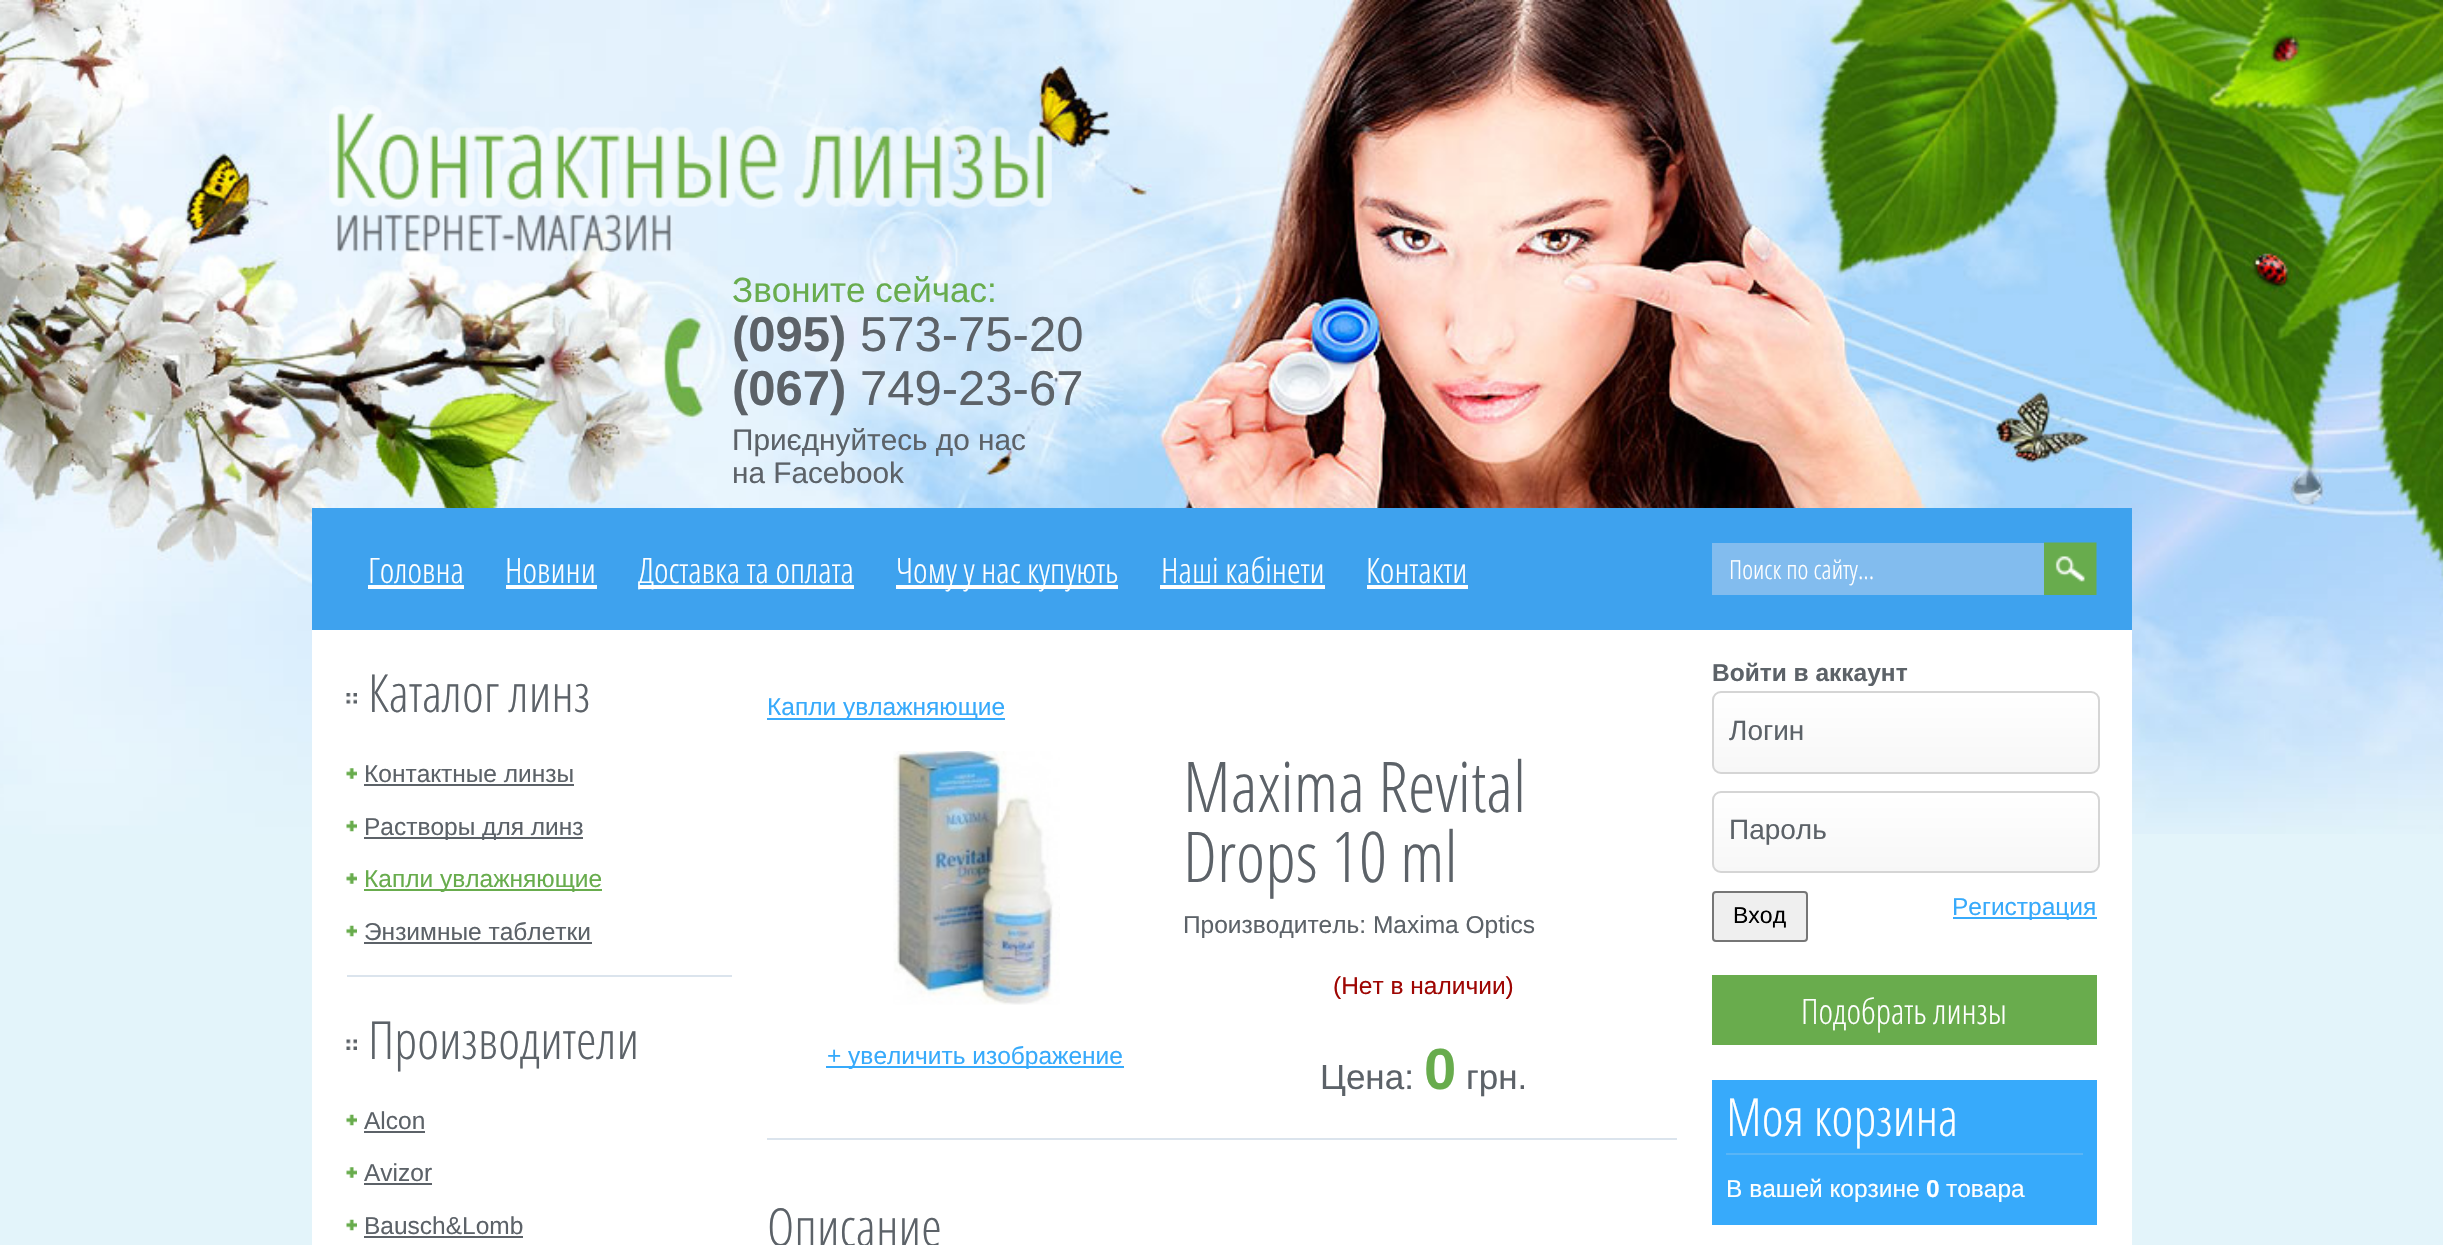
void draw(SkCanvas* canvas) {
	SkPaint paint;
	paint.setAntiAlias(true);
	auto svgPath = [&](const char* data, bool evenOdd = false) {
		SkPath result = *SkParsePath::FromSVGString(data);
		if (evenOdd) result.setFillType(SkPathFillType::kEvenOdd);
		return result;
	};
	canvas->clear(0xffe3f4fa);
	canvas->drawImageRect(SkImages::DeferredFromEncodedData(SkData::MakeFromFileName("img1.png")), SkRect::MakeXYWH(0, 0, 2443, 834), SkSamplingOptions());
	canvas->drawImageRect(SkImages::DeferredFromEncodedData(SkData::MakeFromFileName("img2.png")), SkRect::MakeXYWH(329, 105, 723, 147), SkSamplingOptions());
	SkFont f1(fontMgr->matchFamilyStyle("Liberation Sans", SkFontStyle::Normal()), 35);
	f1.setSubpixel(true);
	paint.setColor(0xff68ac4d);
	canvas->drawString("Звоните сейчас:", 732, 302, f1, paint);
	SkFont f2(fontMgr->matchFamilyStyle("Liberation Sans", SkFontStyle::Bold()), 49);
	f2.setSubpixel(true);
	paint.setColor(0xff5c6268);
	canvas->drawString("(095)", 732, 351, f2, paint);
	SkFont f3(fontMgr->matchFamilyStyle("Liberation Sans", SkFontStyle::Normal()), 49);
	f3.setSubpixel(true);
	canvas->drawString("573-75-20", 860, 351, f3, paint);
	canvas->drawString("(067)", 732, 405, f2, paint);
	canvas->drawString("749-23-67", 860, 405, f3, paint);
	SkFont f4(fontMgr->matchFamilyStyle("Liberation Sans", SkFontStyle::Normal()), 29.75);
	f4.setSubpixel(true);
	canvas->drawString("Приєднуйтесь до нас", 732, 450, f4, paint);
	canvas->drawString("на Facebook", 732, 483, f4, paint);
	paint.setColor(0xff3ea2ee);
	canvas->drawRect(SkRect::MakeXYWH(312, 508, 1820, 122), paint);
	SkFont f5(fontMgr->matchFamilyStyle("Open Sans", SkFontStyle(300, SkFontStyle::kNormal_Width, SkFontStyle::kUpright_Slant)), 35);
	f5.setSubpixel(true);
	paint.setColor(0xffffffff);
	canvas->drawString("Головна", 368, 583, f5, paint);
	canvas->drawRect(SkRect::MakeXYWH(368, 585, 96, 4), paint);
	canvas->drawString("Новини", 505, 583, f5, paint);
	canvas->drawRect(SkRect::MakeXYWH(506, 585, 91, 4), paint);
	canvas->drawRect(SkRect::MakeXYWH(639, 585, 215, 4), paint);
	canvas->drawString("Доставка та оплата", 638, 583, f5, paint);
	canvas->drawRect(SkRect::MakeXYWH(896, 585, 222, 4), paint);
	canvas->drawString("Чому у нас купують", 896, 583, f5, paint);
	canvas->drawString("Наші кабінети", 1161, 583, f5, paint);
	canvas->drawRect(SkRect::MakeXYWH(1160, 585, 165, 4), paint);
	canvas->drawString("Контакти", 1366, 583, f5, paint);
	canvas->drawRect(SkRect::MakeXYWH(1367, 585, 101, 4), paint);
	paint.setColor(0xff82bcee);
	canvas->drawRect(SkRect::MakeXYWH(1712, 543, 332, 52), paint);
	SkFont f6(fontMgr->matchFamilyStyle("Open Sans", SkFontStyle(300, SkFontStyle::kNormal_Width, SkFontStyle::kUpright_Slant)), 26.25);
	f6.setSubpixel(true);
	paint.setColor(0xffffffff);
	canvas->drawString("Поиск по сайту...", 1729, 579, f6, paint);
	canvas->drawImageRect(SkImages::DeferredFromEncodedData(SkData::MakeFromFileName("img3.png")), SkRect::MakeXYWH(2044, 542, 53, 53), SkSamplingOptions());
	canvas->drawRect(SkRect::MakeXYWH(312, 630, 1820, 615), paint);
	canvas->drawImageRect(SkImages::DeferredFromEncodedData(SkData::MakeFromFileName("img4.png")), SkRect::MakeXYWH(346, 693, 11, 11), SkSamplingOptions());
	SkFont f7(fontMgr->matchFamilyStyle("Open Sans", SkFontStyle(300, SkFontStyle::kNormal_Width, SkFontStyle::kUpright_Slant)), 52.5);
	f7.setSubpixel(true);
	paint.setColor(0xff5c6268);
	canvas->drawString("Каталог линз", 368, 712, f7, paint);
	paint.setColor(0xffdbe4ed);
	canvas->drawRect(SkRect::MakeXYWH(347, 975, 385, 2), paint);
	canvas->drawImageRect(SkImages::DeferredFromEncodedData(SkData::MakeFromFileName("img5.png")), SkRect::MakeXYWH(346, 768, 11, 11), SkSamplingOptions());
	SkFont f8(fontMgr->matchFamilyStyle("Liberation Sans", SkFontStyle::Normal()), 24.5);
	f8.setSubpixel(true);
	paint.setColor(0xff5c6268);
	canvas->drawString("Контактные линзы", 364, 782, f8, paint);
	canvas->drawRect(SkRect::MakeXYWH(364, 784, 210, 2), paint);
	canvas->drawImageRect(SkImages::DeferredFromEncodedData(SkData::MakeFromFileName("img6.png")), SkRect::MakeXYWH(346, 820, 11, 12), SkSamplingOptions());
	canvas->drawRect(SkRect::MakeXYWH(364, 837, 219, 2), paint);
	canvas->drawString("Растворы для линз", 364, 835, f8, paint);
	canvas->drawImageRect(SkImages::DeferredFromEncodedData(SkData::MakeFromFileName("img5.png")), SkRect::MakeXYWH(346, 873, 11, 11), SkSamplingOptions());
	paint.setColor(0xff68ac4d);
	canvas->drawRect(SkRect::MakeXYWH(364, 889, 238, 2), paint);
	canvas->drawString("Капли увлажняющие", 364, 887, f8, paint);
	canvas->drawImageRect(SkImages::DeferredFromEncodedData(SkData::MakeFromFileName("img6.png")), SkRect::MakeXYWH(346, 925, 11, 12), SkSamplingOptions());
	paint.setColor(0xff5c6268);
	canvas->drawString("Энзимные таблетки", 364, 940, f8, paint);
	canvas->drawRect(SkRect::MakeXYWH(364, 942, 228, 2), paint);
	canvas->drawImageRect(SkImages::DeferredFromEncodedData(SkData::MakeFromFileName("img7.png")), SkRect::MakeXYWH(346, 1039, 11, 11), SkSamplingOptions());
	canvas->drawString("Производители", 368, 1059, f7, paint);
	canvas->drawImageRect(SkImages::DeferredFromEncodedData(SkData::MakeFromFileName("img6.png")), SkRect::MakeXYWH(346, 1114, 11, 12), SkSamplingOptions());
	canvas->drawString("Alcon", 364, 1129, f8, paint);
	canvas->drawRect(SkRect::MakeXYWH(364, 1131, 61, 2), paint);
	canvas->drawImageRect(SkImages::DeferredFromEncodedData(SkData::MakeFromFileName("img5.png")), SkRect::MakeXYWH(346, 1167, 11, 11), SkSamplingOptions());
	canvas->drawString("Avizor", 364, 1181, f8, paint);
	canvas->drawRect(SkRect::MakeXYWH(364, 1183, 68, 2), paint);
	canvas->drawImageRect(SkImages::DeferredFromEncodedData(SkData::MakeFromFileName("img6.png")), SkRect::MakeXYWH(346, 1219, 11, 12), SkSamplingOptions());
	canvas->drawString("Bausch&Lomb", 364, 1234, f8, paint);
	canvas->drawRect(SkRect::MakeXYWH(364, 1236, 159, 2), paint);
	paint.setColor(0xff37aafb);
	canvas->drawRect(SkRect::MakeXYWH(767, 718, 238, 2), paint);
	canvas->drawString("Капли увлажняющие", 767, 715, f8, paint);
	paint.setColor(0xffdbe4ed);
	canvas->drawRect(SkRect::MakeXYWH(767, 1138, 910, 2), paint);
	canvas->drawImageRect(SkImages::DeferredFromEncodedData(SkData::MakeFromFileName("img8.png")), SkRect::MakeXYWH(893, 751, 167, 254), SkSamplingOptions());
	paint.setColor(0xff37aafb);
	canvas->drawRect(SkRect::MakeXYWH(826, 1066, 298, 2), paint);
	canvas->drawString("+ увеличить изображение", 827, 1064, f8, paint);
	SkFont f9(fontMgr->matchFamilyStyle("Open Sans", SkFontStyle(300, SkFontStyle::kNormal_Width, SkFontStyle::kUpright_Slant)), 70);
	f9.setSubpixel(true);
	paint.setColor(0xff5c6268);
	canvas->drawString("Maxima Revital", 1183, 812, f9, paint);
	canvas->drawString("Drops 10 ml", 1183, 882, f9, paint);
	canvas->drawString("Производитель: Maxima Optics", 1183, 933, f8, paint);
	paint.setColor(0xff9e0603);
	canvas->drawString("(Нет в наличии)", 1333, 994, f8, paint);
	paint.setColor(0xff5c6268);
	canvas->drawString("Цена:", 1320, 1089, f1, paint);
	SkFont f10(fontMgr->matchFamilyStyle("Liberation Sans", SkFontStyle::Bold()), 58);
	f10.setSubpixel(true);
	paint.setColor(0xff68ac4d);
	canvas->drawString("0", 1424, 1089, f10, paint);
	paint.setColor(0xff5c6268);
	canvas->drawString("грн.", 1466, 1089, f1, paint);
	canvas->drawString("Описание", 767, 1246, f7, paint);
	SkFont f11(fontMgr->matchFamilyStyle("Liberation Sans", SkFontStyle::Bold()), 24.5);
	f11.setSubpixel(true);
	canvas->drawString("Войти в аккаунт", 1712, 681, f11, paint);
	canvas->save();
	canvas->clipPath(svgPath("M1721 691H2091C2096 691 2100 695 2100 700V765C2100 770 2096 774 2091 774H1721C1716 774 1712 770 1712 765V700C1712 695 1716 691 1721 691Z"), true);
	{
		const SkColor colors[] = {0xffffffff, 0xfff7f7f7};
		const float stops[] = {0, 1};
		const SkPoint ends[] = {{1906, 693}, {1906, 772}};
		paint.setShader(SkGradientShader::MakeLinear(ends, colors, stops, 2, SkTileMode::kClamp));
		paint.setAlpha(255);
	}
	canvas->drawRect(SkRect::MakeXYWH(1712, 693, 388, 79), paint);
	canvas->restore();
	paint.setStroke(true);
	paint.setStrokeWidth(2);
	paint.setShader(nullptr);
	paint.setColor(0xffd5d5d5);
	canvas->drawRoundRect(SkRect::MakeXYWH(1713, 692, 386, 81), 8, 8, paint);
	SkFont f12(fontMgr->matchFamilyStyle("Liberation Sans", SkFontStyle::Normal()), 28);
	f12.setSubpixel(true);
	paint.setStroke(false);
	paint.setColor(0xff5c6268);
	canvas->drawString("Логин", 1729, 740, f12, paint);
	canvas->save();
	canvas->clipPath(svgPath("M1721 791H2091C2096 791 2100 795 2100 800V864C2100 869 2096 873 2091 873H1721C1716 873 1712 869 1712 864V800C1712 795 1716 791 1721 791Z"), true);
	{
		const SkColor colors[] = {0xffffffff, 0xfff7f7f7};
		const float stops[] = {0, 1};
		const SkPoint ends[] = {{1906, 793}, {1906, 872}};
		paint.setShader(SkGradientShader::MakeLinear(ends, colors, stops, 2, SkTileMode::kClamp));
		paint.setAlpha(255);
	}
	canvas->drawRect(SkRect::MakeXYWH(1712, 793, 388, 79), paint);
	canvas->restore();
	paint.setStroke(true);
	paint.setShader(nullptr);
	paint.setColor(0xffd5d5d5);
	canvas->drawRoundRect(SkRect::MakeXYWH(1713, 792, 386, 80), 8, 8, paint);
	paint.setStroke(false);
	paint.setColor(0xff5c6268);
	canvas->drawString("Пароль", 1729, 839, f12, paint);
	paint.setColor(0xffefefef);
	canvas->drawRoundRect(SkRect::MakeXYWH(1713, 892, 94, 49), 3, 3, paint);
	paint.setStroke(true);
	paint.setColor(0xff767676);
	canvas->drawRoundRect(SkRect::MakeXYWH(1713, 892, 94, 49), 3, 3, paint);
	SkFont f13(fontMgr->matchFamilyStyle("Liberation Sans", SkFontStyle::Normal()), 23);
	f13.setSubpixel(true);
	paint.setStroke(false);
	paint.setColor(0xff000000);
	canvas->drawString("Вход", 1733, 923, f13, paint);
	paint.setColor(0xff37aafb);
	canvas->drawRect(SkRect::MakeXYWH(1953, 917, 144, 2), paint);
	canvas->drawString("Регистрация", 1952, 915, f8, paint);
	paint.setColor(0xff69ac4d);
	canvas->drawRect(SkRect::MakeXYWH(1712, 975, 385, 70), paint);
	paint.setColor(0xffffffff);
	canvas->drawString("Подобрать линзы", 1801, 1024, f5, paint);
	paint.setColor(0xff37aafb);
	canvas->drawRect(SkRect::MakeXYWH(1712, 1080, 385, 145), paint);
	paint.setColor(0xff59b5f6);
	canvas->drawRect(SkRect::MakeXYWH(1726, 1153, 357, 2), paint);
	paint.setColor(0xffffffff);
	canvas->drawString("Моя корзина", 1726, 1136, f7, paint);
	canvas->drawString("В вашей корзине", 1726, 1197, f8, paint);
	canvas->drawString("0", 1926, 1197, f11, paint);
	canvas->drawString("товара", 1946, 1197, f8, paint);
}
